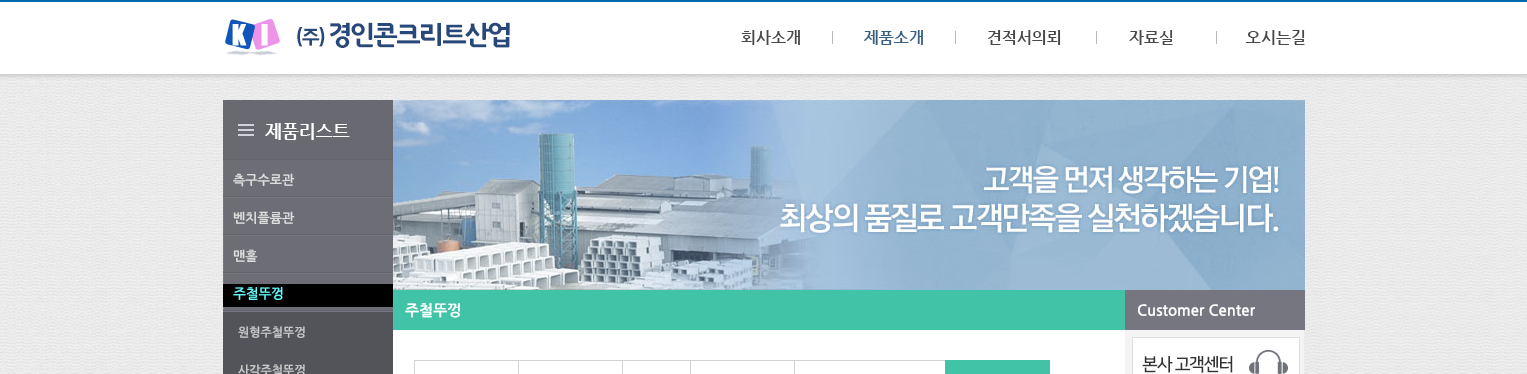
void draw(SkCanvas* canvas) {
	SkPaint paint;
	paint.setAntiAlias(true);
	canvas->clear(0xffffffff);
	canvas->drawImageRect(SkImages::DeferredFromEncodedData(SkData::MakeFromFileName("img1.png")), SkRect::MakeXYWH(0, 74, 1527, 300), SkSamplingOptions());
	canvas->drawImageRect(SkImages::DeferredFromEncodedData(SkData::MakeFromFileName("img2.png")), SkRect::MakeXYWH(0, 0, 1527, 74), SkSamplingOptions());
	canvas->drawImageRect(SkImages::DeferredFromEncodedData(SkData::MakeFromFileName("img3.png")), SkRect::MakeXYWH(225, 19, 285, 37), SkSamplingOptions());
	canvas->drawImageRect(SkImages::DeferredFromEncodedData(SkData::MakeFromFileName("img4.png")), SkRect::MakeXYWH(741, 30, 59, 15), SkSamplingOptions());
	canvas->drawImageRect(SkImages::DeferredFromEncodedData(SkData::MakeFromFileName("img5.png")), SkRect::MakeXYWH(832, 30, 91, 15), SkSamplingOptions());
	canvas->drawImageRect(SkImages::DeferredFromEncodedData(SkData::MakeFromFileName("img6.png")), SkRect::MakeXYWH(955, 30, 106, 15), SkSamplingOptions());
	canvas->drawImageRect(SkImages::DeferredFromEncodedData(SkData::MakeFromFileName("img7.png")), SkRect::MakeXYWH(1096, 30, 77, 15), SkSamplingOptions());
	canvas->drawImageRect(SkImages::DeferredFromEncodedData(SkData::MakeFromFileName("img8.png")), SkRect::MakeXYWH(1216, 30, 89, 15), SkSamplingOptions());
	canvas->drawImageRect(SkImages::DeferredFromEncodedData(SkData::MakeFromFileName("img9.png")), SkRect::MakeXYWH(0, 74, 1527, 5), SkSamplingOptions());
	canvas->drawImageRect(SkImages::DeferredFromEncodedData(SkData::MakeFromFileName("img10.png")), SkRect::MakeXYWH(223, 100, 909, 274), SkSamplingOptions());
	canvas->drawImageRect(SkImages::DeferredFromEncodedData(SkData::MakeFromFileName("img11.png")), SkRect::MakeXYWH(223, 123, 170, 37), SkSamplingOptions());
	canvas->drawImageRect(SkImages::DeferredFromEncodedData(SkData::MakeFromFileName("img12.png")), SkRect::MakeXYWH(223, 160, 170, 38), SkSamplingOptions());
	SkFont f1(fontMgr->matchFamilyStyle("NanumGothic", SkFontStyle::Bold()), 13);
	f1.setSubpixel(true);
	paint.setColor(0xffdddddd);
	canvas->drawString("측구수로관", 233, 184, f1, paint);
	canvas->drawImageRect(SkImages::DeferredFromEncodedData(SkData::MakeFromFileName("img12.png")), SkRect::MakeXYWH(223, 198, 170, 38), SkSamplingOptions());
	canvas->drawString("벤치플륨관", 233, 222, f1, paint);
	canvas->drawImageRect(SkImages::DeferredFromEncodedData(SkData::MakeFromFileName("img12.png")), SkRect::MakeXYWH(223, 236, 170, 38), SkSamplingOptions());
	canvas->drawString("맨홀", 233, 260, f1, paint);
	canvas->drawImageRect(SkImages::DeferredFromEncodedData(SkData::MakeFromFileName("img12.png")), SkRect::MakeXYWH(223, 274, 170, 38), SkSamplingOptions());
	paint.setColor(0xff000000);
	canvas->drawRect(SkRect::MakeXYWH(223, 284, 170, 23), paint);
	SkFont f2(fontMgr->matchFamilyStyle("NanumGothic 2", SkFontStyle::Bold()), 13.5);
	f2.setSubpixel(true);
	paint.setColor(0xff66ffff);
	canvas->drawString("주철뚜껑", 233, 298, f2, paint);
	paint.setColor(0xff53545a);
	canvas->drawRect(SkRect::MakeXYWH(223, 312, 170, 62), paint);
	SkFont f3(fontMgr->matchFamilyStyle("NanumGothic", SkFontStyle::Bold()), 12);
	f3.setSubpixel(true);
	paint.setColor(0xffc9c9c9);
	canvas->drawString("원형주철뚜껑", 238, 336, f3, paint);
	canvas->drawString("사각주철뚜껑", 238, 374, f3, paint);
	canvas->drawImageRect(SkImages::DeferredFromEncodedData(SkData::MakeFromFileName("img13.png")), SkRect::MakeXYWH(393, 100, 912, 190), SkSamplingOptions());
	paint.setColor(0xff41c3a8);
	canvas->drawRect(SkRect::MakeXYWH(393, 290, 732, 40), paint);
	SkFont f4(fontMgr->matchFamilyStyle("NanumGothic", SkFontStyle::Bold()), 15);
	f4.setSubpixel(true);
	paint.setColor(0xffffffff);
	canvas->drawString("주철뚜껑", 405, 315, f4, paint);
	paint.setColor(0xff757680);
	canvas->drawRect(SkRect::MakeXYWH(1125, 290, 180, 40), paint);
	paint.setColor(0xffffffff);
	canvas->drawString("Customer Center", 1137, 315, f4, paint);
	paint.setStroke(true);
	paint.setStrokeWidth(1);
	paint.setColor(0xffd3d3d3);
	canvas->drawRect(SkRect::MakeXYWH(414.5, 360.5, 104, 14), paint);
	canvas->drawRect(SkRect::MakeXYWH(518.5, 360.5, 104, 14), paint);
	canvas->drawRect(SkRect::MakeXYWH(622.5, 360.5, 68, 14), paint);
	canvas->drawRect(SkRect::MakeXYWH(690.5, 360.5, 104, 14), paint);
	canvas->drawRect(SkRect::MakeXYWH(794.5, 360.5, 151, 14), paint);
	paint.setStroke(false);
	paint.setColor(0xff41c3a8);
	canvas->drawRect(SkRect::MakeXYWH(945, 360, 105, 14), paint);
	canvas->drawImageRect(SkImages::DeferredFromEncodedData(SkData::MakeFromFileName("img14.png")), SkRect::MakeXYWH(1132, 330, 173, 44), SkSamplingOptions());
}
